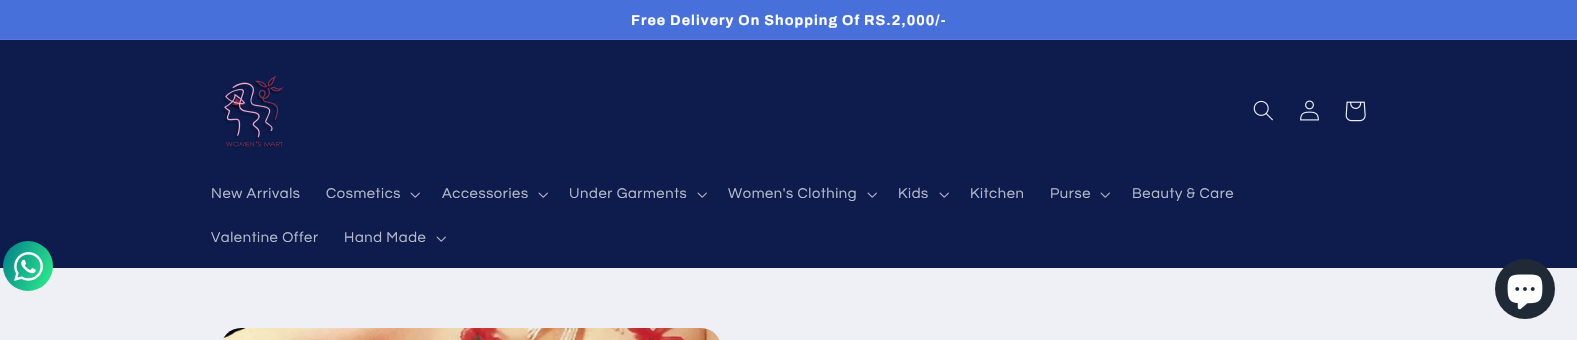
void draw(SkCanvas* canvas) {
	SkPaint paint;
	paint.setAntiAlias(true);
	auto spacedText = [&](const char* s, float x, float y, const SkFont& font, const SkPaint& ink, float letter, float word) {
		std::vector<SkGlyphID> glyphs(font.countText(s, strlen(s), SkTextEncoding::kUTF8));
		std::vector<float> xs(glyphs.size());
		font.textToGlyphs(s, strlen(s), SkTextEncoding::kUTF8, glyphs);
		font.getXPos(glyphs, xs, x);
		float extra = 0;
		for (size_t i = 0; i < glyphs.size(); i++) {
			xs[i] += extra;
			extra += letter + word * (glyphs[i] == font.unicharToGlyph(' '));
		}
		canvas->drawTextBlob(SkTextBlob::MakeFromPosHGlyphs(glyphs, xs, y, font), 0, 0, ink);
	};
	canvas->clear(0xffeff0f5);
	paint.setColor(0xff4770db);
	canvas->drawRect(SkRect::MakeXYWH(0, 0, 1577, 39), paint);
	paint.setColor(0xff567bde);
	canvas->drawRect(SkRect::MakeXYWH(0, 39, 1577, 1), paint);
	SkFont f1(fontMgr->matchFamilyStyle("Archivo", SkFontStyle::Bold()), 14.3);
	f1.setSubpixel(true);
	paint.setColor(0xffffffff);
	spacedText("Free Delivery On Shopping Of RS.2,000/-", 631, 25, f1, paint, 1.05, 0);
	paint.setColor(0xff0e1b4d);
	canvas->drawRect(SkRect::MakeXYWH(0, 40, 1577, 228), paint);
	canvas->drawImageRect(SkImages::DeferredFromEncodedData(SkData::MakeFromFileName("img1.png")), SkRect::MakeXYWH(222, 75, 62, 73), SkSamplingOptions());
	canvas->drawImageRect(SkImages::DeferredFromEncodedData(SkData::MakeFromFileName("img2.png")), SkRect::MakeXYWH(1253, 100, 20, 21), SkSamplingOptions());
	canvas->drawImageRect(SkImages::DeferredFromEncodedData(SkData::MakeFromFileName("img3.png")), SkRect::MakeXYWH(1300, 100, 19, 21), SkSamplingOptions());
	canvas->drawImageRect(SkImages::DeferredFromEncodedData(SkData::MakeFromFileName("img4.png")), SkRect::MakeXYWH(1345, 101, 21, 21), SkSamplingOptions());
	SkFont f2(fontMgr->matchFamilyStyle("Questrial", SkFontStyle::Normal()), 14.75);
	f2.setSubpixel(true);
	paint.setColor(0xffb7bbcb);
	spacedText("New Arrivals", 211, 198, f2, paint, 0.6, 0);
	spacedText("Cosmetics", 326, 198, f2, paint, 0.6, 0);
	canvas->drawImageRect(SkImages::DeferredFromEncodedData(SkData::MakeFromFileName("img5.png")), SkRect::MakeXYWH(410, 192, 10, 6), SkSamplingOptions());
	spacedText("Accessories", 442, 198, f2, paint, 0.6, 0);
	canvas->drawImageRect(SkImages::DeferredFromEncodedData(SkData::MakeFromFileName("img5.png")), SkRect::MakeXYWH(538, 192, 10, 6), SkSamplingOptions());
	spacedText("Under Garments", 569, 198, f2, paint, 0.6, 0);
	canvas->drawImageRect(SkImages::DeferredFromEncodedData(SkData::MakeFromFileName("img5.png")), SkRect::MakeXYWH(697, 192, 10, 6), SkSamplingOptions());
	spacedText("Women's Clothing", 728, 198, f2, paint, 0.6, 0);
	canvas->drawImageRect(SkImages::DeferredFromEncodedData(SkData::MakeFromFileName("img5.png")), SkRect::MakeXYWH(867, 192, 10, 6), SkSamplingOptions());
	spacedText("Kids", 898, 198, f2, paint, 0.6, 0);
	canvas->drawImageRect(SkImages::DeferredFromEncodedData(SkData::MakeFromFileName("img5.png")), SkRect::MakeXYWH(939, 192, 10, 6), SkSamplingOptions());
	spacedText("Kitchen", 970, 198, f2, paint, 0.6, 0);
	spacedText("Purse", 1050, 198, f2, paint, 0.6, 0);
	canvas->drawImageRect(SkImages::DeferredFromEncodedData(SkData::MakeFromFileName("img5.png")), SkRect::MakeXYWH(1100, 192, 10, 6), SkSamplingOptions());
	spacedText("Beauty & Care", 1132, 198, f2, paint, 0.6, 0);
	spacedText("Valentine Offer", 211, 242, f2, paint, 0.6, 0);
	spacedText("Hand Made", 344, 242, f2, paint, 0.6, 0);
	canvas->drawImageRect(SkImages::DeferredFromEncodedData(SkData::MakeFromFileName("img5.png")), SkRect::MakeXYWH(436, 236, 10, 6), SkSamplingOptions());
	{
		const SkColor colors[] = {0xff047c8d, 0xff2ff289};
		const float stops[] = {0, 1};
		const SkPoint ends[] = {{-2.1, 252}, {58, 280}};
		paint.setShader(SkGradientShader::MakeLinear(ends, colors, stops, 2, SkTileMode::kClamp));
		paint.setAlpha(255);
	}
	canvas->drawCircle(28, 266, 25, paint);
	canvas->drawImageRect(SkImages::DeferredFromEncodedData(SkData::MakeFromFileName("img6.png")), SkRect::MakeXYWH(14, 252, 29, 29), SkSamplingOptions());
	paint.setShader(nullptr);
	paint.setColor(0xff202a36);
	canvas->drawCircle(1525, 289, 30, paint);
	canvas->drawImageRect(SkImages::DeferredFromEncodedData(SkData::MakeFromFileName("img7.png")), SkRect::MakeXYWH(1507, 274, 36, 36), SkSamplingOptions());
	canvas->drawImageRect(SkImages::DeferredFromEncodedData(SkData::MakeFromFileName("img8.png")), SkRect::MakeXYWH(222, 328, 498, 12), SkSamplingOptions());
}
